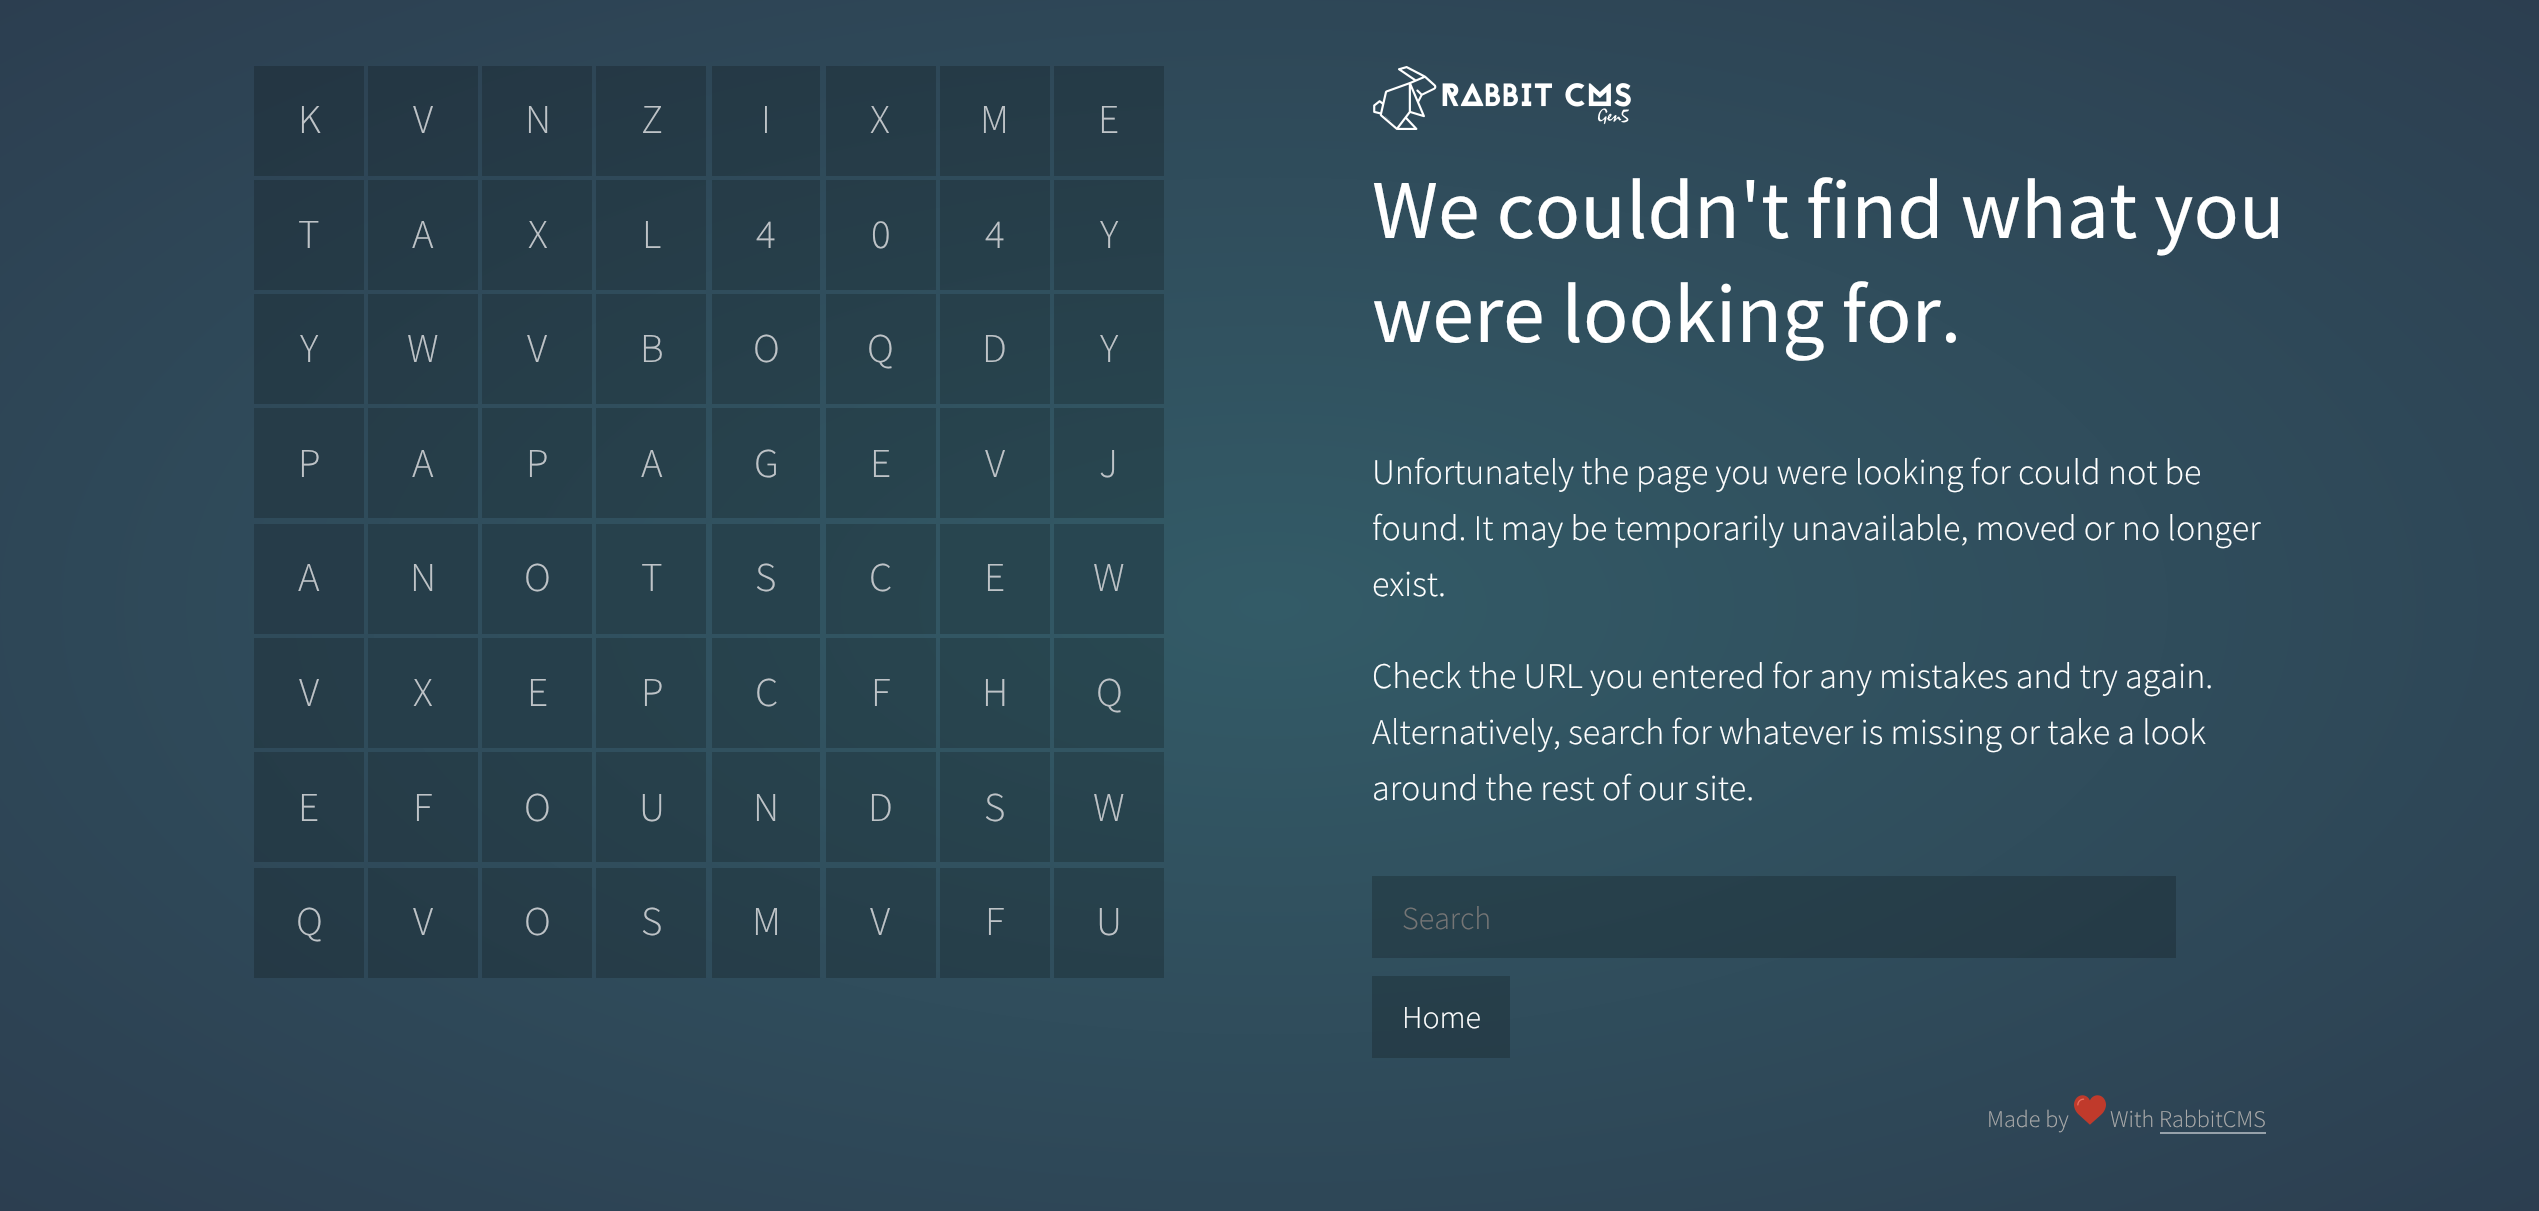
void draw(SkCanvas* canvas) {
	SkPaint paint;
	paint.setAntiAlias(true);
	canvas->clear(0xffffffff);
	{
		const SkColor colors[] = {0xff335b67, 0xff2c3e50};
		const float stops[] = {0, 1};
		SkMatrix m = SkMatrix::Translate(1270, 606).preScale(1796, 857);
		paint.setShader(SkGradientShader::MakeRadial({0, 0}, 1, colors, stops, 2, SkTileMode::kClamp, 0, &m));
		paint.setAlpha(255);
	}
	canvas->drawRect(SkRect::MakeXYWH(0, 0, 2539, 1211), paint);
	{
		const SkColor colors[] = {0xff294952, 0xff233240};
		const float stops[] = {0, 1};
		SkMatrix m = SkMatrix::Translate(1270, 606).preScale(1796, 857);
		paint.setShader(SkGradientShader::MakeRadial({0, 0}, 1, colors, stops, 2, SkTileMode::kClamp, 0, &m));
		paint.setAlpha(255);
	}
	canvas->drawRect(SkRect::MakeXYWH(1054, 868, 110, 110), paint);
	canvas->drawRect(SkRect::MakeXYWH(940, 868, 110, 110), paint);
	canvas->drawRect(SkRect::MakeXYWH(826, 868, 110, 110), paint);
	canvas->drawRect(SkRect::MakeXYWH(712, 868, 108, 110), paint);
	canvas->drawRect(SkRect::MakeXYWH(596, 868, 110, 110), paint);
	canvas->drawRect(SkRect::MakeXYWH(482, 868, 110, 110), paint);
	canvas->drawRect(SkRect::MakeXYWH(368, 868, 110, 110), paint);
	canvas->drawRect(SkRect::MakeXYWH(254, 868, 110, 110), paint);
	canvas->drawRect(SkRect::MakeXYWH(1054, 752, 110, 110), paint);
	canvas->drawRect(SkRect::MakeXYWH(940, 752, 110, 110), paint);
	canvas->drawRect(SkRect::MakeXYWH(826, 752, 110, 110), paint);
	canvas->drawRect(SkRect::MakeXYWH(712, 752, 108, 110), paint);
	canvas->drawRect(SkRect::MakeXYWH(596, 752, 110, 110), paint);
	canvas->drawRect(SkRect::MakeXYWH(482, 752, 110, 110), paint);
	canvas->drawRect(SkRect::MakeXYWH(368, 752, 110, 110), paint);
	canvas->drawRect(SkRect::MakeXYWH(254, 752, 110, 110), paint);
	canvas->drawRect(SkRect::MakeXYWH(1054, 638, 110, 110), paint);
	canvas->drawRect(SkRect::MakeXYWH(940, 638, 110, 110), paint);
	canvas->drawRect(SkRect::MakeXYWH(826, 638, 110, 110), paint);
	canvas->drawRect(SkRect::MakeXYWH(712, 638, 108, 110), paint);
	canvas->drawRect(SkRect::MakeXYWH(596, 638, 110, 110), paint);
	canvas->drawRect(SkRect::MakeXYWH(254, 638, 110, 110), paint);
	canvas->drawRect(SkRect::MakeXYWH(826, 524, 110, 110), paint);
	canvas->drawRect(SkRect::MakeXYWH(1054, 408, 110, 110), paint);
	canvas->drawRect(SkRect::MakeXYWH(940, 408, 110, 110), paint);
	canvas->drawRect(SkRect::MakeXYWH(826, 408, 110, 110), paint);
	canvas->drawRect(SkRect::MakeXYWH(712, 408, 108, 110), paint);
	canvas->drawRect(SkRect::MakeXYWH(596, 408, 110, 110), paint);
	canvas->drawRect(SkRect::MakeXYWH(482, 408, 110, 110), paint);
	canvas->drawRect(SkRect::MakeXYWH(368, 408, 110, 110), paint);
	canvas->drawRect(SkRect::MakeXYWH(1054, 294, 110, 110), paint);
	canvas->drawRect(SkRect::MakeXYWH(940, 294, 110, 110), paint);
	canvas->drawRect(SkRect::MakeXYWH(826, 294, 110, 110), paint);
	canvas->drawRect(SkRect::MakeXYWH(712, 294, 108, 110), paint);
	canvas->drawRect(SkRect::MakeXYWH(596, 294, 110, 110), paint);
	canvas->drawRect(SkRect::MakeXYWH(482, 294, 110, 110), paint);
	canvas->drawRect(SkRect::MakeXYWH(368, 294, 110, 110), paint);
	canvas->drawRect(SkRect::MakeXYWH(254, 294, 110, 110), paint);
	canvas->drawRect(SkRect::MakeXYWH(1054, 180, 110, 110), paint);
	canvas->drawRect(SkRect::MakeXYWH(940, 180, 110, 110), paint);
	canvas->drawRect(SkRect::MakeXYWH(826, 180, 110, 110), paint);
	canvas->drawRect(SkRect::MakeXYWH(712, 180, 108, 110), paint);
	canvas->drawRect(SkRect::MakeXYWH(596, 180, 110, 110), paint);
	canvas->drawRect(SkRect::MakeXYWH(482, 180, 110, 110), paint);
	canvas->drawRect(SkRect::MakeXYWH(368, 180, 110, 110), paint);
	canvas->drawRect(SkRect::MakeXYWH(254, 180, 110, 110), paint);
	canvas->drawRect(SkRect::MakeXYWH(1054, 66, 110, 110), paint);
	canvas->drawRect(SkRect::MakeXYWH(940, 66, 110, 110), paint);
	canvas->drawRect(SkRect::MakeXYWH(826, 66, 110, 110), paint);
	canvas->drawRect(SkRect::MakeXYWH(712, 66, 108, 110), paint);
	canvas->drawRect(SkRect::MakeXYWH(596, 66, 110, 110), paint);
	canvas->drawRect(SkRect::MakeXYWH(482, 66, 110, 110), paint);
	canvas->drawRect(SkRect::MakeXYWH(368, 66, 110, 110), paint);
	canvas->drawRect(SkRect::MakeXYWH(254, 66, 110, 110), paint);
	canvas->drawRect(SkRect::MakeXYWH(1372, 876, 804, 82), paint);
	canvas->drawRect(SkRect::MakeXYWH(1372, 976, 138, 82), paint);
	SkFont f1(fontMgr->matchFamilyStyle("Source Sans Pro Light", SkFontStyle(300, SkFontStyle::kNormal_Width, SkFontStyle::kUpright_Slant)), 41);
	f1.setSubpixel(true);
	paint.setShader(nullptr);
	paint.setColor(0xffbec3c7);
	canvas->drawString("K", 298, 133, f1, paint);
	canvas->drawString("V", 413, 133, f1, paint);
	canvas->drawString("N", 525, 133, f1, paint);
	canvas->drawString("Z", 641, 133, f1, paint);
	canvas->drawString("I", 761, 133, f1, paint);
	canvas->drawString("X", 870, 133, f1, paint);
	canvas->drawString("M", 980, 133, f1, paint);
	canvas->drawString("E", 1098, 133, f1, paint);
	canvas->drawString("T", 298, 248, f1, paint);
	canvas->drawString("A", 412, 248, f1, paint);
	canvas->drawString("X", 528, 248, f1, paint);
	canvas->drawString("L", 642, 248, f1, paint);
	canvas->drawString("4", 756, 248, f1, paint);
	canvas->drawString("0", 871, 248, f1, paint);
	canvas->drawString("4", 985, 248, f1, paint);
	canvas->drawString("Y", 1100, 248, f1, paint);
	canvas->drawString("Y", 300, 362, f1, paint);
	canvas->drawString("W", 407, 362, f1, paint);
	canvas->drawString("V", 527, 362, f1, paint);
	canvas->drawString("B", 640, 362, f1, paint);
	canvas->drawString("O", 753, 362, f1, paint);
	canvas->drawString("Q", 867, 362, f1, paint);
	canvas->drawString("D", 982, 362, f1, paint);
	canvas->drawString("Y", 1100, 362, f1, paint);
	paint.setColor(0xff263c48);
	canvas->drawRect(SkRect::MakeXYWH(254, 408, 110, 110), paint);
	paint.setColor(0xffbec3c7);
	canvas->drawString("P", 298, 477, f1, paint);
	canvas->drawString("A", 412, 477, f1, paint);
	canvas->drawString("P", 526, 477, f1, paint);
	canvas->drawString("A", 641, 477, f1, paint);
	canvas->drawString("G", 754, 477, f1, paint);
	canvas->drawString("E", 870, 477, f1, paint);
	canvas->drawString("V", 985, 477, f1, paint);
	canvas->drawString("J", 1099, 477, f1, paint);
	paint.setColor(0xff263c49);
	canvas->drawRect(SkRect::MakeXYWH(254, 524, 110, 110), paint);
	paint.setColor(0xffbec3c7);
	canvas->drawString("A", 298, 591, f1, paint);
	paint.setColor(0xff263e4a);
	canvas->drawRect(SkRect::MakeXYWH(368, 524, 110, 110), paint);
	paint.setColor(0xffbec3c7);
	canvas->drawString("N", 410, 591, f1, paint);
	paint.setColor(0xff263f4b);
	canvas->drawRect(SkRect::MakeXYWH(482, 524, 110, 110), paint);
	paint.setColor(0xffbec3c7);
	canvas->drawString("O", 524, 591, f1, paint);
	paint.setColor(0xff27414c);
	canvas->drawRect(SkRect::MakeXYWH(596, 524, 110, 110), paint);
	paint.setColor(0xffbec3c7);
	canvas->drawString("T", 641, 591, f1, paint);
	paint.setColor(0xff27424d);
	canvas->drawRect(SkRect::MakeXYWH(712, 524, 108, 110), paint);
	paint.setColor(0xffbec3c7);
	canvas->drawString("S", 755, 591, f1, paint);
	canvas->drawString("C", 869, 591, f1, paint);
	paint.setColor(0xff28454f);
	canvas->drawRect(SkRect::MakeXYWH(940, 524, 110, 110), paint);
	paint.setColor(0xffbec3c7);
	canvas->drawString("E", 984, 591, f1, paint);
	paint.setColor(0xff284651);
	canvas->drawRect(SkRect::MakeXYWH(1054, 524, 110, 110), paint);
	paint.setColor(0xffbec3c7);
	canvas->drawString("W", 1093, 591, f1, paint);
	canvas->drawString("V", 299, 706, f1, paint);
	paint.setColor(0xff263e4a);
	canvas->drawRect(SkRect::MakeXYWH(368, 638, 110, 110), paint);
	paint.setColor(0xffbec3c7);
	canvas->drawString("X", 413, 706, f1, paint);
	paint.setColor(0xff263f4b);
	canvas->drawRect(SkRect::MakeXYWH(482, 638, 110, 110), paint);
	paint.setColor(0xffbec3c7);
	canvas->drawString("E", 527, 706, f1, paint);
	canvas->drawString("P", 641, 706, f1, paint);
	canvas->drawString("C", 755, 706, f1, paint);
	canvas->drawString("F", 871, 706, f1, paint);
	canvas->drawString("H", 982, 706, f1, paint);
	canvas->drawString("Q", 1096, 706, f1, paint);
	canvas->drawString("E", 298, 821, f1, paint);
	canvas->drawString("F", 413, 821, f1, paint);
	canvas->drawString("O", 524, 821, f1, paint);
	canvas->drawString("U", 639, 821, f1, paint);
	canvas->drawString("N", 753, 821, f1, paint);
	canvas->drawString("D", 868, 821, f1, paint);
	canvas->drawString("S", 984, 821, f1, paint);
	canvas->drawString("W", 1093, 821, f1, paint);
	canvas->drawString("Q", 296, 935, f1, paint);
	canvas->drawString("V", 413, 935, f1, paint);
	canvas->drawString("O", 524, 935, f1, paint);
	canvas->drawString("S", 641, 935, f1, paint);
	canvas->drawString("M", 752, 935, f1, paint);
	canvas->drawString("V", 870, 935, f1, paint);
	canvas->drawString("F", 985, 935, f1, paint);
	canvas->drawString("U", 1096, 935, f1, paint);
	canvas->drawImageRect(SkImages::DeferredFromEncodedData(SkData::MakeFromFileName("img1.png")), SkRect::MakeXYWH(1373, 66, 258, 64), SkSamplingOptions());
	SkFont f2(fontMgr->matchFamilyStyle("Source Sans Pro", SkFontStyle::Normal()), 84);
	f2.setSubpixel(true);
	paint.setColor(0xffffffff);
	canvas->drawString("We couldn't find what you", 1372, 238, f2, paint);
	canvas->drawString("were looking for.", 1372, 342, f2, paint);
	SkFont f3(fontMgr->matchFamilyStyle("Source Sans Pro Light", SkFontStyle(300, SkFontStyle::kNormal_Width, SkFontStyle::kUpright_Slant)), 36);
	f3.setSubpixel(true);
	canvas->drawString("Unfortunately the page you were looking for could not be", 1372, 484, f3, paint);
	canvas->drawString("found. It may be temporarily unavailable, moved or no longer", 1372, 540, f3, paint);
	canvas->drawString("exist.", 1372, 596, f3, paint);
	canvas->drawString("Check the URL you entered for any mistakes and try again.", 1372, 688, f3, paint);
	canvas->drawString("Alternatively, search for whatever is missing or take a look", 1372, 744, f3, paint);
	canvas->drawString("around the rest of our site.", 1372, 800, f3, paint);
	SkFont f4(fontMgr->matchFamilyStyle("Source Sans Pro Light", SkFontStyle(300, SkFontStyle::kNormal_Width, SkFontStyle::kUpright_Slant)), 32);
	f4.setSubpixel(true);
	paint.setColor(0xff757575);
	canvas->drawString("Search", 1402, 929, f4, paint);
	paint.setColor(0xffffffff);
	canvas->drawString("Home", 1402, 1028, f4, paint);
	SkFont f5(fontMgr->matchFamilyStyle("Source Sans Pro Light", SkFontStyle(300, SkFontStyle::kNormal_Width, SkFontStyle::kUpright_Slant)), 24);
	f5.setSubpixel(true);
	paint.setColor(0xffa9a9a9);
	canvas->drawString("Made by", 1987, 1127, f5, paint);
	canvas->drawImageRect(SkImages::DeferredFromEncodedData(SkData::MakeFromFileName("img2.png")), SkRect::MakeXYWH(2074, 1095, 32, 30), SkSamplingOptions());
	canvas->drawString("With RabbitCMS", 2110, 1127, f5, paint);
	paint.setColor(0xff96a1aa);
	canvas->drawRect(SkRect::MakeXYWH(2160, 1132, 106, 2), paint);
}
